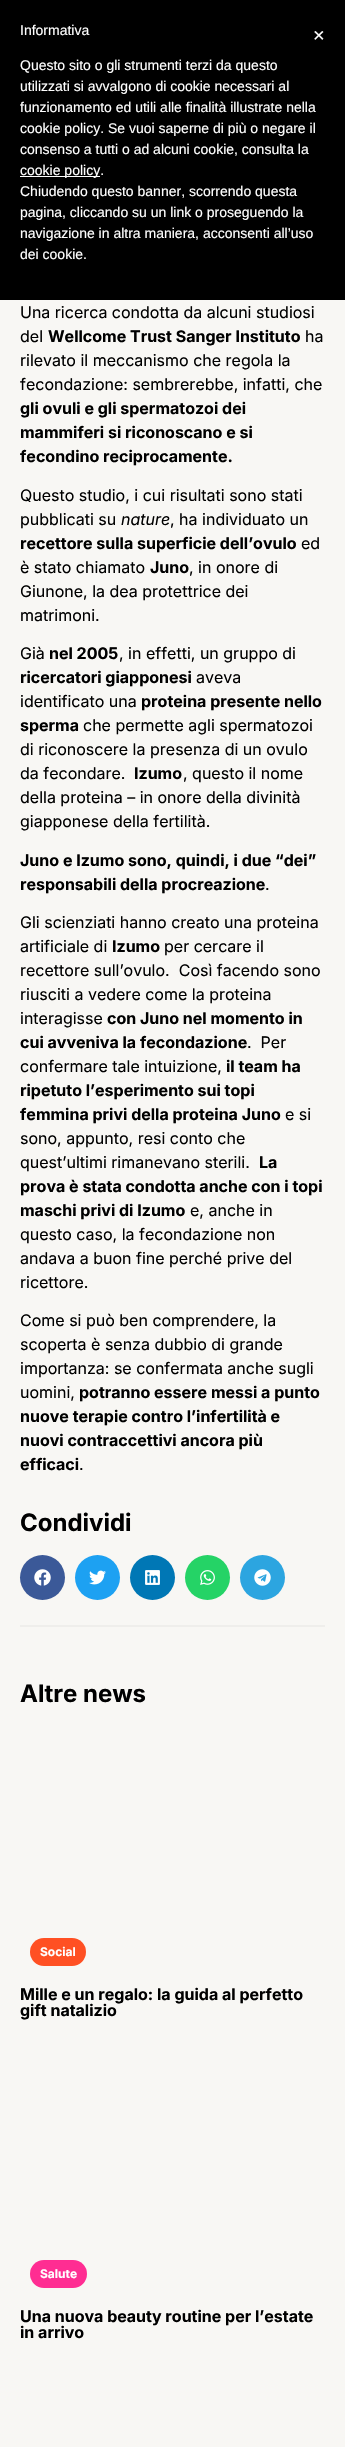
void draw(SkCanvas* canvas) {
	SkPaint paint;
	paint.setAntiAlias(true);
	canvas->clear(0xfff8f7f4);
	paint.setColor(0xff000000);
	canvas->drawRect(SkRect::MakeXYWH(0, 0, 345, 300), paint);
	SkFont f1(fontMgr->matchFamilyStyle("Liberation Sans", SkFontStyle::Normal()), 14);
	f1.setSubpixel(true);
	paint.setColor(0xffffffff);
	canvas->drawString("Informativa", 20, 35, f1, paint);
	canvas->drawString("Questo sito o gli strumenti terzi da questo", 20, 70, f1, paint);
	canvas->drawString("utilizzati si avvalgono di cookie necessari al", 20, 91, f1, paint);
	canvas->drawString("funzionamento ed utili alle finalità illustrate nella", 20, 112, f1, paint);
	canvas->drawString("cookie policy. Se vuoi saperne di più o negare il", 20, 133, f1, paint);
	canvas->drawString("consenso a tutti o ad alcuni cookie, consulta la", 20, 154, f1, paint);
	canvas->drawRect(SkRect::MakeXYWH(20, 176, 80, 1), paint);
	canvas->drawString("cookie policy.", 20, 175, f1, paint);
	canvas->drawString("Chiudendo questo banner, scorrendo questa", 20, 196, f1, paint);
	canvas->drawString("pagina, cliccando su un link o proseguendo la", 20, 217, f1, paint);
	canvas->drawString("navigazione in altra maniera, acconsenti all’uso", 20, 238, f1, paint);
	canvas->drawString("dei cookie.", 20, 259, f1, paint);
	SkFont f2(fontMgr->matchFamilyStyle("Liberation Sans", SkFontStyle::Normal()), 20);
	f2.setSubpixel(true);
	canvas->drawString("×", 313, 42, f2, paint);
	SkFont f3(fontMgr->matchFamilyStyle("Inter", SkFontStyle::Normal()), 16);
	f3.setSubpixel(true);
	paint.setColor(0xff000000);
	canvas->drawString("Una ricerca condotta da alcuni studiosi", 20, 318, f3, paint);
	canvas->drawString("del", 20, 342, f3, paint);
	SkFont f4(fontMgr->matchFamilyStyle("Inter", SkFontStyle::Bold()), 16);
	f4.setSubpixel(true);
	canvas->drawString("Wellcome Trust Sanger Instituto", 48, 342, f4, paint);
	canvas->drawString("ha", 305, 342, f3, paint);
	canvas->drawString("rilevato il meccanismo che regola la", 20, 366, f3, paint);
	canvas->drawString("fecondazione: sembrerebbe, infatti, che", 20, 390, f3, paint);
	canvas->drawString("gli ovuli e gli spermatozoi dei", 20, 414, f4, paint);
	canvas->drawString("mammiferi si riconoscano e si", 20, 438, f4, paint);
	canvas->drawString("fecondino reciprocamente.", 20, 462, f4, paint);
	canvas->drawString("Questo studio, i cui risultati sono stati", 20, 501, f3, paint);
	canvas->drawString("pubblicati su", 20, 525, f3, paint);
	SkFont f5(fontMgr->matchFamilyStyle("Inter", SkFontStyle::Italic()), 16);
	f5.setSubpixel(true);
	canvas->drawString("nature", 121, 525, f5, paint);
	canvas->drawString(", ha individuato un", 170, 525, f3, paint);
	canvas->drawString("recettore sulla superficie dell’ovulo", 20, 549, f4, paint);
	canvas->drawString("ed", 301, 549, f3, paint);
	canvas->drawString("è stato chiamato", 20, 573, f3, paint);
	canvas->drawString("Juno", 150, 573, f4, paint);
	canvas->drawString(", in onore di", 189, 573, f3, paint);
	canvas->drawString("Giunone, la dea protettrice dei", 20, 597, f3, paint);
	canvas->drawString("matrimoni.", 20, 621, f3, paint);
	canvas->drawString("Già", 20, 659, f3, paint);
	canvas->drawString("nel 2005", 49, 659, f4, paint);
	canvas->drawString(", in effetti, un gruppo di", 119, 659, f3, paint);
	canvas->drawString("ricercatori giapponesi", 20, 683, f4, paint);
	canvas->drawString("aveva", 196, 683, f3, paint);
	canvas->drawString("identificato una", 20, 707, f3, paint);
	canvas->drawString("proteina presente nello", 141, 707, f4, paint);
	canvas->drawString("sperma", 20, 731, f4, paint);
	canvas->drawString("che permette agli spermatozoi", 83, 731, f3, paint);
	canvas->drawString("di riconoscere la presenza di un ovulo", 20, 755, f3, paint);
	canvas->drawString("da fecondare.", 20, 779, f3, paint);
	canvas->drawString("Izumo", 134, 779, f4, paint);
	canvas->drawString(", questo il nome", 183, 779, f3, paint);
	canvas->drawString("della proteina – in onore della divinità", 20, 803, f3, paint);
	canvas->drawString("giapponese della fertilità.", 20, 827, f3, paint);
	canvas->drawString("Juno e Izumo sono, quindi, i due “dei”", 20, 866, f4, paint);
	canvas->drawString("responsabili della procreazione", 20, 890, f4, paint);
	canvas->drawString(".", 265, 890, f3, paint);
	canvas->drawString("Gli scienziati hanno creato una proteina", 20, 928, f3, paint);
	canvas->drawString("artificiale di", 20, 952, f3, paint);
	canvas->drawString("Izumo", 112, 952, f4, paint);
	canvas->drawString("per cercare il", 164, 952, f3, paint);
	canvas->drawString("recettore sull’ovulo.  Così facendo sono", 20, 976, f3, paint);
	canvas->drawString("riusciti a vedere come la proteina", 20, 1000, f3, paint);
	canvas->drawString("interagisse", 20, 1024, f3, paint);
	canvas->drawString("con Juno nel momento in", 107, 1024, f4, paint);
	canvas->drawString("cui avveniva la fecondazione", 20, 1048, f4, paint);
	canvas->drawString(".  Per", 247, 1048, f3, paint);
	canvas->drawString("confermare tale intuizione,", 20, 1072, f3, paint);
	canvas->drawString("il team ha", 226, 1072, f4, paint);
	canvas->drawString("ripetuto l’esperimento sui topi", 20, 1096, f4, paint);
	canvas->drawString("femmina privi della proteina Juno", 20, 1120, f4, paint);
	canvas->drawString("e si", 285, 1120, f3, paint);
	canvas->drawString("sono, appunto, resi conto che", 20, 1144, f3, paint);
	canvas->drawString("quest’ultimi rimanevano sterili.", 20, 1168, f3, paint);
	canvas->drawString("La", 259, 1168, f4, paint);
	canvas->drawString("prova è stata condotta anche con i topi", 20, 1192, f4, paint);
	canvas->drawString("maschi privi di Izumo", 20, 1216, f4, paint);
	canvas->drawString("e, anche in", 190, 1216, f3, paint);
	canvas->drawString("questo caso, la fecondazione non", 20, 1240, f3, paint);
	canvas->drawString("andava a buon fine perché prive del", 20, 1264, f3, paint);
	canvas->drawString("ricettore.", 20, 1288, f3, paint);
	canvas->drawString("Come si può ben comprendere, la", 20, 1326, f3, paint);
	canvas->drawString("scoperta è senza dubbio di grande", 20, 1350, f3, paint);
	canvas->drawString("importanza: se confermata anche sugli", 20, 1374, f3, paint);
	canvas->drawString("uomini,", 20, 1398, f3, paint);
	canvas->drawString("potranno essere messi a punto", 79, 1398, f4, paint);
	canvas->drawString("nuove terapie contro l’infertilità e", 20, 1422, f4, paint);
	canvas->drawString("nuovi contraccettivi ancora più", 20, 1446, f4, paint);
	canvas->drawString("efficaci", 20, 1470, f4, paint);
	canvas->drawString(".", 79, 1470, f3, paint);
	SkFont f6(fontMgr->matchFamilyStyle("Inter", SkFontStyle::Bold()), 24);
	f6.setSubpixel(true);
	canvas->drawString("Condividi", 20, 1531, f6, paint);
	paint.setColor(0xff3b5998);
	canvas->drawCircle(42.5, 1577.5, 22.5, paint);
	canvas->drawImageRect(SkImages::DeferredFromEncodedData(SkData::MakeFromFileName("img1.png")), SkRect::MakeXYWH(34, 1569, 17, 17), SkSamplingOptions());
	paint.setColor(0xff1da1f2);
	canvas->drawCircle(97.5, 1577.5, 22.5, paint);
	canvas->drawImageRect(SkImages::DeferredFromEncodedData(SkData::MakeFromFileName("img2.png")), SkRect::MakeXYWH(89, 1570, 17, 15), SkSamplingOptions());
	paint.setColor(0xff0077b5);
	canvas->drawCircle(152.5, 1577.5, 22.5, paint);
	canvas->drawImageRect(SkImages::DeferredFromEncodedData(SkData::MakeFromFileName("img3.png")), SkRect::MakeXYWH(145, 1570, 15, 15), SkSamplingOptions());
	paint.setColor(0xff25d366);
	canvas->drawCircle(207.5, 1577.5, 22.5, paint);
	canvas->drawImageRect(SkImages::DeferredFromEncodedData(SkData::MakeFromFileName("img4.png")), SkRect::MakeXYWH(200, 1570, 15, 15), SkSamplingOptions());
	paint.setColor(0xff2ca5e0);
	canvas->drawCircle(262.5, 1577.5, 22.5, paint);
	canvas->drawImageRect(SkImages::DeferredFromEncodedData(SkData::MakeFromFileName("img5.png")), SkRect::MakeXYWH(254, 1569, 17, 17), SkSamplingOptions());
	paint.setColor(0xffefeeeb);
	canvas->drawRect(SkRect::MakeXYWH(20, 1625, 305, 2), paint);
	paint.setColor(0xff000000);
	canvas->drawString("Altre news", 20, 1702, f6, paint);
	paint.setColor(0xffff5023);
	canvas->drawRoundRect(SkRect::MakeXYWH(30, 1938, 56, 28), 14, 14, paint);
	SkFont f7(fontMgr->matchFamilyStyle("Inter", SkFontStyle::Bold()), 12);
	f7.setSubpixel(true);
	paint.setColor(0xffffffff);
	canvas->drawString("Social", 40, 1956, f7, paint);
	paint.setColor(0xff000000);
	canvas->drawString("Mille e un regalo: la guida al perfetto", 20, 2000, f4, paint);
	canvas->drawString("gift natalizio", 20, 2016, f4, paint);
	paint.setColor(0xffff2d92);
	canvas->drawRoundRect(SkRect::MakeXYWH(30, 2260, 57, 28), 14, 14, paint);
	paint.setColor(0xffffffff);
	canvas->drawString("Salute", 40, 2278, f7, paint);
	paint.setColor(0xff000000);
	canvas->drawString("Una nuova beauty routine per l’estate", 20, 2322, f4, paint);
	canvas->drawString("in arrivo", 20, 2338, f4, paint);
}
